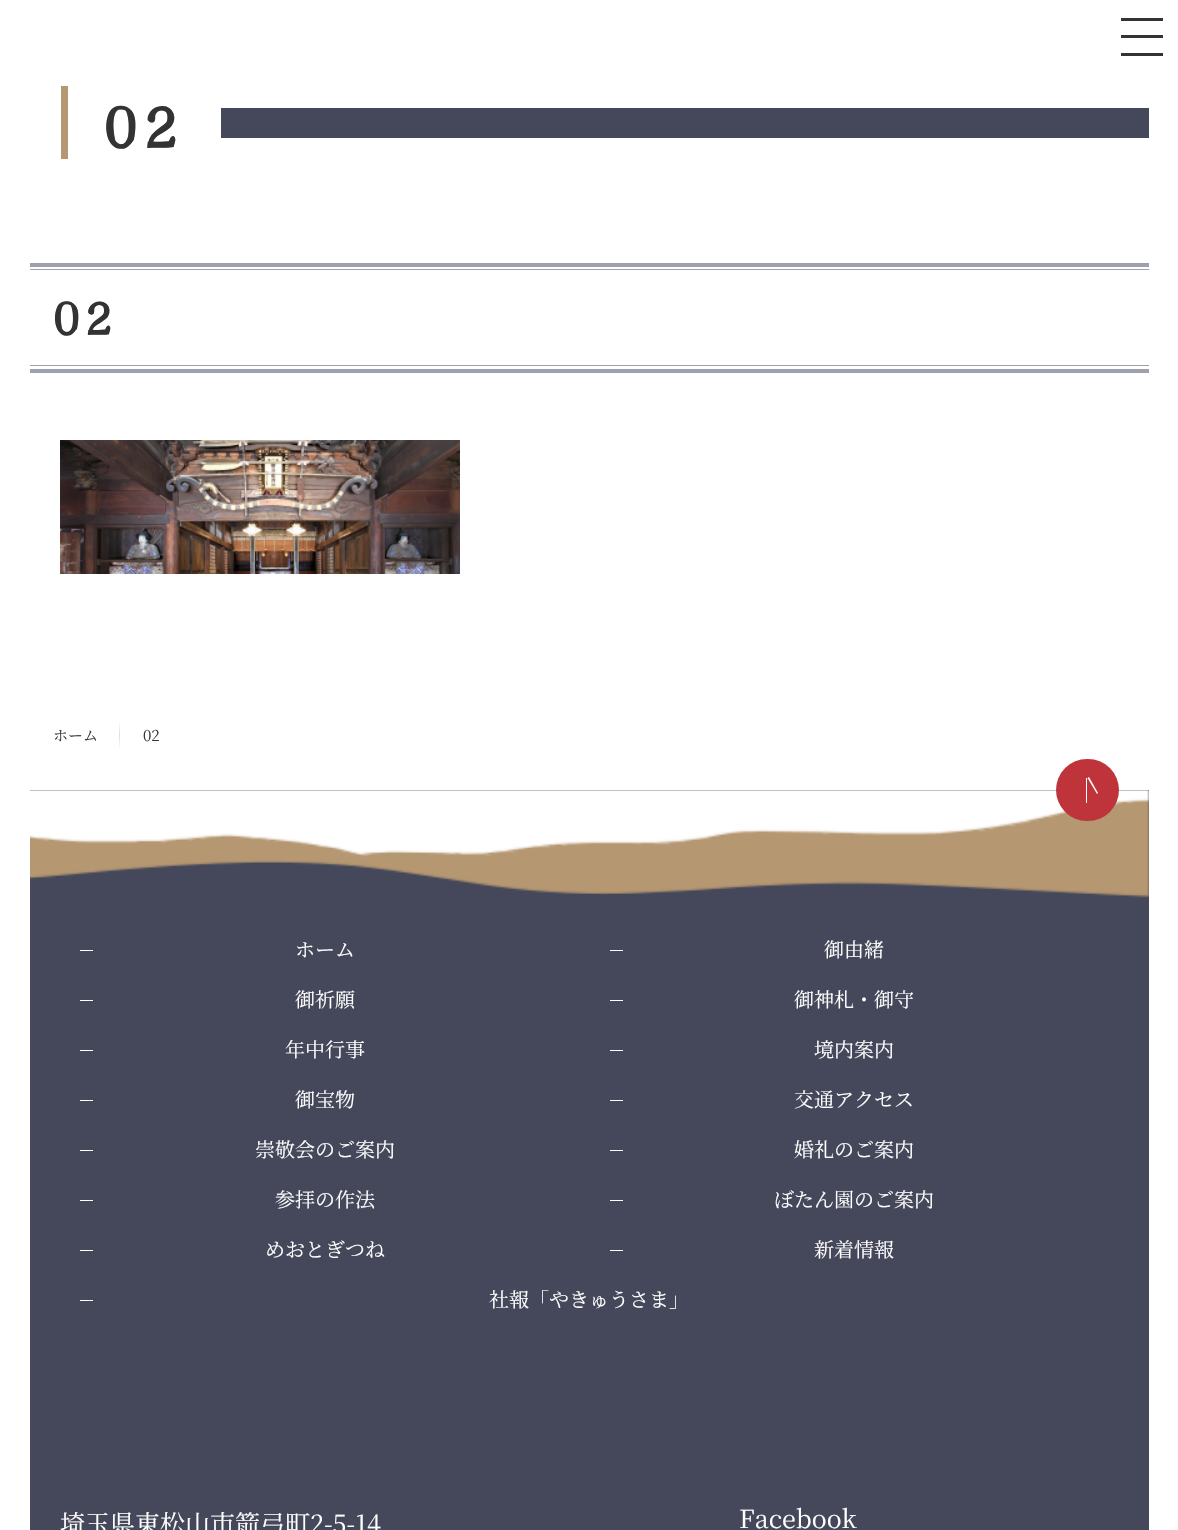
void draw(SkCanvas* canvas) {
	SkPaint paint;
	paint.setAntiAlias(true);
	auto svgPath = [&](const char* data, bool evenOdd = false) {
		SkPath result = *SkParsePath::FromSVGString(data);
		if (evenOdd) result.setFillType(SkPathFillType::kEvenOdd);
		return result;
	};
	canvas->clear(0xffffffff);
	paint.setColor(0xff333333);
	canvas->drawRect(SkRect::MakeXYWH(1121, 18, 42, 3), paint);
	canvas->drawRect(SkRect::MakeXYWH(1121, 35, 42, 3), paint);
	canvas->drawRect(SkRect::MakeXYWH(1121, 53, 42, 3), paint);
	paint.setColor(0xff45485b);
	canvas->drawRect(SkRect::MakeXYWH(221, 108, 928, 30), paint);
	paint.setColor(0xffb59771);
	canvas->drawRect(SkRect::MakeXYWH(61, 86, 7, 73), paint);
	SkFont f1(fontMgr->matchFamilyStyle("Yuji Syuku", SkFontStyle::Bold()), 60);
	f1.setSubpixel(true);
	paint.setColor(0xff333333);
	canvas->drawString("02", 100, 148, f1, paint);
	paint.setColor(0xff9ea0ae);
	canvas->drawRect(SkRect::MakeXYWH(30, 263, 1119, 4), paint);
	canvas->drawRect(SkRect::MakeXYWH(30, 369, 1119, 4), paint);
	canvas->drawRect(SkRect::MakeXYWH(30, 269, 1119, 1), paint);
	canvas->drawRect(SkRect::MakeXYWH(30, 365, 1119, 1), paint);
	SkFont f2(fontMgr->matchFamilyStyle("Yuji Syuku", SkFontStyle::Bold()), 48);
	f2.setSubpixel(true);
	paint.setColor(0xff333333);
	canvas->drawString("02", 50, 335, f2, paint);
	canvas->drawImageRect(SkImages::DeferredFromEncodedData(SkData::MakeFromFileName("img1.png")), SkRect::MakeXYWH(60, 440, 400, 134), SkSamplingOptions());
	SkFont f3(fontMgr->matchFamilyStyle("Noto Serif JP", SkFontStyle(200, SkFontStyle::kNormal_Width, SkFontStyle::kUpright_Slant)), 15);
	f3.setSubpixel(true);
	canvas->drawString("ホーム", 53, 741, f3, paint);
	{
		const SkColor colors[] = {0xffffffff, 0xffeddbcf, 0xffffffff};
		const float stops[] = {0, 0.5, 1};
		const SkPoint ends[] = {{119, 720}, {119, 750}};
		paint.setShader(SkGradientShader::MakeLinear(ends, colors, stops, 3, SkTileMode::kClamp));
		paint.setAlpha(255);
	}
	canvas->drawRect(SkRect::MakeXYWH(119, 720, 1, 30), paint);
	paint.setShader(nullptr);
	paint.setColor(0xff333333);
	canvas->drawString("02", 143, 741, f3, paint);
	paint.setColor(0xff45485b);
	canvas->drawRect(SkRect::MakeXYWH(30, 790, 1119, 740), paint);
	canvas->drawImageRect(SkImages::DeferredFromEncodedData(SkData::MakeFromFileName("img2.png")), SkRect::MakeXYWH(30, 790, 1119, 108), SkSamplingOptions());
	paint.setColor(0xffbf343b);
	canvas->drawRoundRect(SkRect::MakeXYWH(1056, 759, 63, 62), 31, 31, paint);
	paint.setColor(0xffffffff);
	canvas->drawRect(SkRect::MakeXYWH(1086, 778, 1, 25), paint);
	canvas->drawPath(svgPath("M1089 777L1098 793L1097 794L1087.5 778Z"), paint);
	canvas->drawRect(SkRect::MakeXYWH(80, 950, 13, 1), paint);
	SkFont f4(fontMgr->matchFamilyStyle("Noto Serif JP", SkFontStyle(200, SkFontStyle::kNormal_Width, SkFontStyle::kUpright_Slant)), 20);
	f4.setSubpixel(true);
	canvas->drawString("ホーム", 295, 957, f4, paint);
	canvas->drawRect(SkRect::MakeXYWH(610, 950, 13, 1), paint);
	canvas->drawString("御由緒", 824, 957, f4, paint);
	canvas->drawRect(SkRect::MakeXYWH(80, 1000, 13, 1), paint);
	canvas->drawString("御祈願", 295, 1007, f4, paint);
	canvas->drawRect(SkRect::MakeXYWH(610, 1000, 13, 1), paint);
	canvas->drawString("御神札・御守", 794, 1007, f4, paint);
	canvas->drawRect(SkRect::MakeXYWH(80, 1050, 13, 1), paint);
	canvas->drawString("年中行事", 285, 1057, f4, paint);
	canvas->drawRect(SkRect::MakeXYWH(610, 1050, 13, 1), paint);
	canvas->drawString("境内案内", 814, 1057, f4, paint);
	canvas->drawRect(SkRect::MakeXYWH(80, 1100, 13, 1), paint);
	canvas->drawString("御宝物", 295, 1107, f4, paint);
	canvas->drawRect(SkRect::MakeXYWH(610, 1100, 13, 1), paint);
	canvas->drawString("交通アクセス", 794, 1107, f4, paint);
	canvas->drawRect(SkRect::MakeXYWH(80, 1150, 13, 1), paint);
	canvas->drawString("崇敬会のご案内", 255, 1157, f4, paint);
	canvas->drawRect(SkRect::MakeXYWH(610, 1150, 13, 1), paint);
	canvas->drawString("婚礼のご案内", 794, 1157, f4, paint);
	canvas->drawRect(SkRect::MakeXYWH(80, 1200, 13, 1), paint);
	canvas->drawString("参拝の作法", 275, 1207, f4, paint);
	canvas->drawRect(SkRect::MakeXYWH(610, 1200, 13, 1), paint);
	canvas->drawString("ぼたん園のご案内", 774, 1207, f4, paint);
	canvas->drawRect(SkRect::MakeXYWH(80, 1250, 13, 1), paint);
	canvas->drawString("めおとぎつね", 265, 1257, f4, paint);
	canvas->drawRect(SkRect::MakeXYWH(610, 1250, 13, 1), paint);
	canvas->drawString("新着情報", 814, 1257, f4, paint);
	canvas->drawRect(SkRect::MakeXYWH(80, 1300, 13, 1), paint);
	canvas->drawString("社報「やきゅうさま」", 489, 1307, f4, paint);
	SkFont f5(fontMgr->matchFamilyStyle("Noto Serif JP", SkFontStyle(200, SkFontStyle::kNormal_Width, SkFontStyle::kUpright_Slant)), 25);
	f5.setSubpixel(true);
	canvas->drawString("埼玉県東松山市箭弓町2-5-14", 60, 1533, f5, paint);
	canvas->drawString("Facebook", 739, 1528, f5, paint);
}
